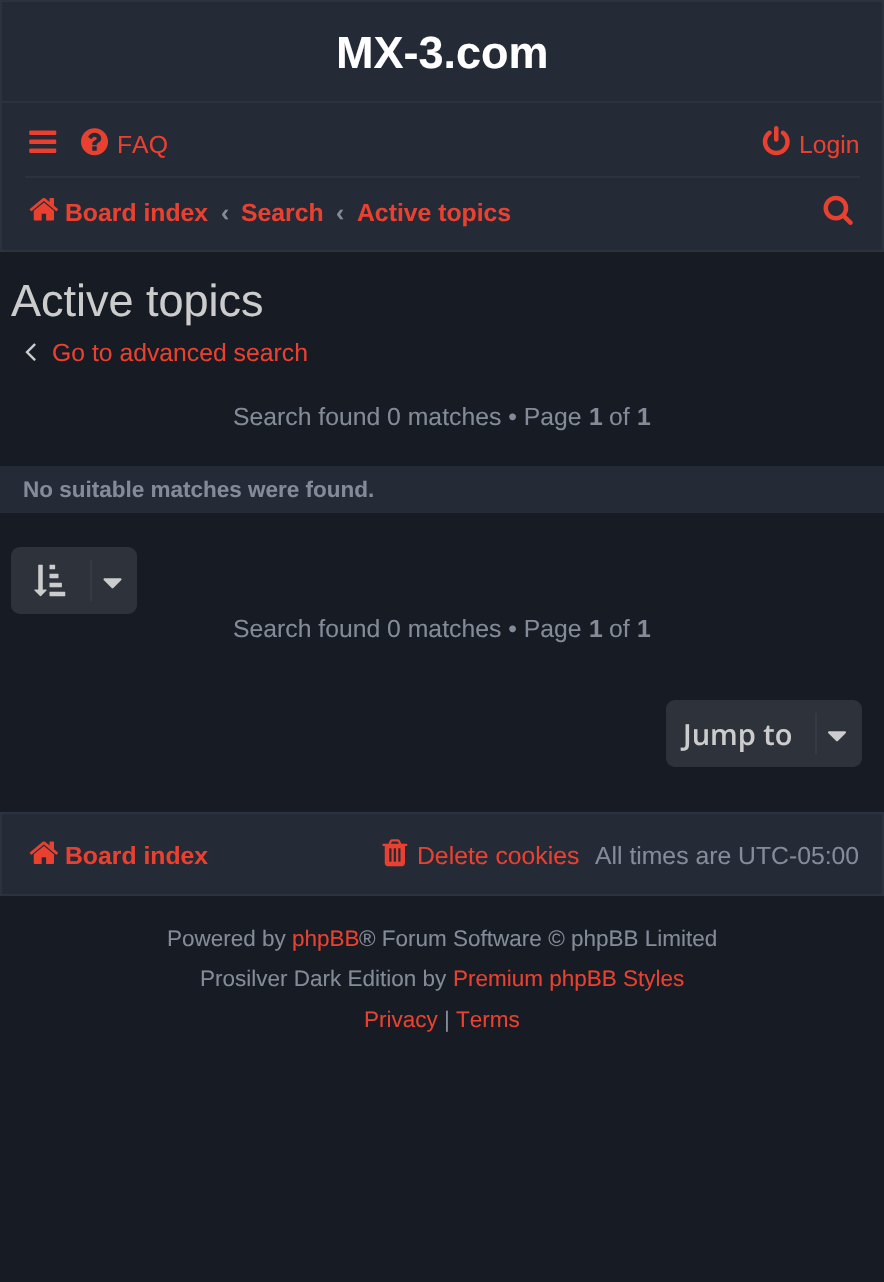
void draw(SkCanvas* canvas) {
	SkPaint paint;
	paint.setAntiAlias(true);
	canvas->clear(0xff171b24);
	paint.setColor(0xff242a36);
	canvas->drawRect(SkRect::MakeXYWH(2, 2, 880, 99), paint);
	paint.setStroke(true);
	paint.setStrokeWidth(2);
	paint.setColor(0xff2d333e);
	canvas->drawRect(SkRect::MakeXYWH(1, 1, 882, 102), paint);
	SkFont f1(fontMgr->matchFamilyStyle("Liberation Sans", SkFontStyle::Bold()), 45);
	f1.setSubpixel(true);
	paint.setStroke(false);
	paint.setColor(0xffffffff);
	canvas->drawString("MX-3.com", 336, 68, f1, paint);
	paint.setColor(0xff242a36);
	canvas->drawRect(SkRect::MakeXYWH(1, 102, 882, 149), paint);
	paint.setStroke(true);
	paint.setColor(0xff2d333e);
	canvas->drawRect(SkRect::MakeXYWH(1, 102, 882, 149), paint);
	canvas->drawImageRect(SkImages::DeferredFromEncodedData(SkData::MakeFromFileName("img1.png")), SkRect::MakeXYWH(29, 130, 28, 23), SkSamplingOptions());
	canvas->drawImageRect(SkImages::DeferredFromEncodedData(SkData::MakeFromFileName("img2.png")), SkRect::MakeXYWH(81, 128, 27, 28), SkSamplingOptions());
	SkFont f2(fontMgr->matchFamilyStyle("Liberation Sans", SkFontStyle::Normal()), 24.75);
	f2.setSubpixel(true);
	paint.setStroke(false);
	paint.setColor(0xffe9402f);
	canvas->drawString("FAQ", 117, 153, f2, paint);
	canvas->drawImageRect(SkImages::DeferredFromEncodedData(SkData::MakeFromFileName("img3.png")), SkRect::MakeXYWH(762, 126, 28, 30), SkSamplingOptions());
	canvas->drawString("Login", 799, 153, f2, paint);
	paint.setColor(0xff2d333e);
	canvas->drawRect(SkRect::MakeXYWH(25, 176, 835, 2), paint);
	canvas->drawImageRect(SkImages::DeferredFromEncodedData(SkData::MakeFromFileName("img4.png")), SkRect::MakeXYWH(29, 198, 29, 23), SkSamplingOptions());
	SkFont f3(fontMgr->matchFamilyStyle("Liberation Sans", SkFontStyle::Bold()), 24.75);
	f3.setSubpixel(true);
	paint.setColor(0xffe9402f);
	canvas->drawString("Board index", 65, 221, f3, paint);
	paint.setColor(0xff838b98);
	canvas->drawString("‹", 221, 221, f3, paint);
	paint.setColor(0xffe9402f);
	canvas->drawString("Search", 241, 221, f3, paint);
	paint.setColor(0xff838b98);
	canvas->drawString("‹", 336, 221, f3, paint);
	paint.setColor(0xffe9402f);
	canvas->drawString("Active topics", 357, 221, f3, paint);
	canvas->drawImageRect(SkImages::DeferredFromEncodedData(SkData::MakeFromFileName("img5.png")), SkRect::MakeXYWH(823, 195, 30, 30), SkSamplingOptions());
	SkFont f4(fontMgr->matchFamilyStyle("Liberation Sans", SkFontStyle::Normal()), 45);
	f4.setSubpixel(true);
	paint.setColor(0xffcccccc);
	canvas->drawString("Active topics", 11, 316, f4, paint);
	canvas->drawImageRect(SkImages::DeferredFromEncodedData(SkData::MakeFromFileName("img6.png")), SkRect::MakeXYWH(25, 343, 11, 18), SkSamplingOptions());
	paint.setColor(0xffe9402f);
	canvas->drawString("Go to advanced search", 52, 361, f2, paint);
	paint.setColor(0xff838b98);
	canvas->drawString("Search found 0 matches • Page", 233, 425, f2, paint);
	canvas->drawString("1", 589, 425, f3, paint);
	canvas->drawString("of", 609, 425, f2, paint);
	canvas->drawString("1", 637, 425, f3, paint);
	paint.setColor(0xff242a36);
	canvas->drawRect(SkRect::MakeXYWH(0, 466, 884, 47), paint);
	SkFont f5(fontMgr->matchFamilyStyle("Liberation Sans", SkFontStyle::Bold()), 22.5);
	f5.setSubpixel(true);
	paint.setColor(0xff838b98);
	canvas->drawString("No suitable matches were found.", 23, 497, f5, paint);
	paint.setColor(0xff2e323a);
	canvas->drawRoundRect(SkRect::MakeXYWH(11, 547, 126, 67), 9, 9, paint);
	canvas->drawImageRect(SkImages::DeferredFromEncodedData(SkData::MakeFromFileName("img7.png")), SkRect::MakeXYWH(34, 564, 32, 33), SkSamplingOptions());
	paint.setColor(0xff363a42);
	canvas->drawRect(SkRect::MakeXYWH(90, 560, 2, 41), paint);
	canvas->drawImageRect(SkImages::DeferredFromEncodedData(SkData::MakeFromFileName("img8.png")), SkRect::MakeXYWH(103, 578, 19, 11), SkSamplingOptions());
	paint.setColor(0xff838b98);
	canvas->drawString("Search found 0 matches • Page", 233, 637, f2, paint);
	canvas->drawString("1", 589, 637, f3, paint);
	canvas->drawString("of", 609, 637, f2, paint);
	canvas->drawString("1", 637, 637, f3, paint);
	paint.setColor(0xff2e323a);
	canvas->drawRoundRect(SkRect::MakeXYWH(666, 700, 196, 67), 9, 9, paint);
	SkFont f6(fontMgr->matchFamilyStyle("Open Sans", SkFontStyle(600, SkFontStyle::kNormal_Width, SkFontStyle::kUpright_Slant)), 29);
	f6.setSubpixel(true);
	paint.setColor(0xffcccccc);
	canvas->drawString("Jump to", 683, 745, f6, paint);
	paint.setColor(0xff363a42);
	canvas->drawRect(SkRect::MakeXYWH(815, 713, 2, 41), paint);
	canvas->drawImageRect(SkImages::DeferredFromEncodedData(SkData::MakeFromFileName("img9.png")), SkRect::MakeXYWH(828, 731, 18, 11), SkSamplingOptions());
	paint.setColor(0xff242a36);
	canvas->drawRect(SkRect::MakeXYWH(1, 813, 882, 82), paint);
	paint.setStroke(true);
	paint.setColor(0xff2d333e);
	canvas->drawRect(SkRect::MakeXYWH(1, 813, 882, 82), paint);
	canvas->drawImageRect(SkImages::DeferredFromEncodedData(SkData::MakeFromFileName("img10.png")), SkRect::MakeXYWH(29, 841, 29, 23), SkSamplingOptions());
	paint.setStroke(false);
	paint.setColor(0xffe9402f);
	canvas->drawString("Board index", 65, 864, f3, paint);
	canvas->drawImageRect(SkImages::DeferredFromEncodedData(SkData::MakeFromFileName("img11.png")), SkRect::MakeXYWH(382, 839, 26, 28), SkSamplingOptions());
	canvas->drawString("Delete cookies", 417, 864, f2, paint);
	paint.setColor(0xff838b98);
	canvas->drawString("All times are UTC-05:00", 595, 864, f2, paint);
	SkFont f7(fontMgr->matchFamilyStyle("Liberation Sans", SkFontStyle::Normal()), 22.5);
	f7.setSubpixel(true);
	canvas->drawString("Powered by", 167, 946, f7, paint);
	paint.setColor(0xffe9402f);
	canvas->drawString("phpBB", 292, 946, f7, paint);
	paint.setColor(0xff838b98);
	canvas->drawString("® Forum Software © phpBB Limited", 359, 946, f7, paint);
	canvas->drawString("Prosilver Dark Edition by", 200, 986, f7, paint);
	paint.setColor(0xffe9402f);
	canvas->drawString("Premium phpBB Styles", 453, 986, f7, paint);
	canvas->drawString("Privacy", 364, 1027, f7, paint);
	paint.setColor(0xff838b98);
	canvas->drawString("|", 444, 1027, f7, paint);
	paint.setColor(0xffe9402f);
	canvas->drawString("Terms", 456, 1027, f7, paint);
}
